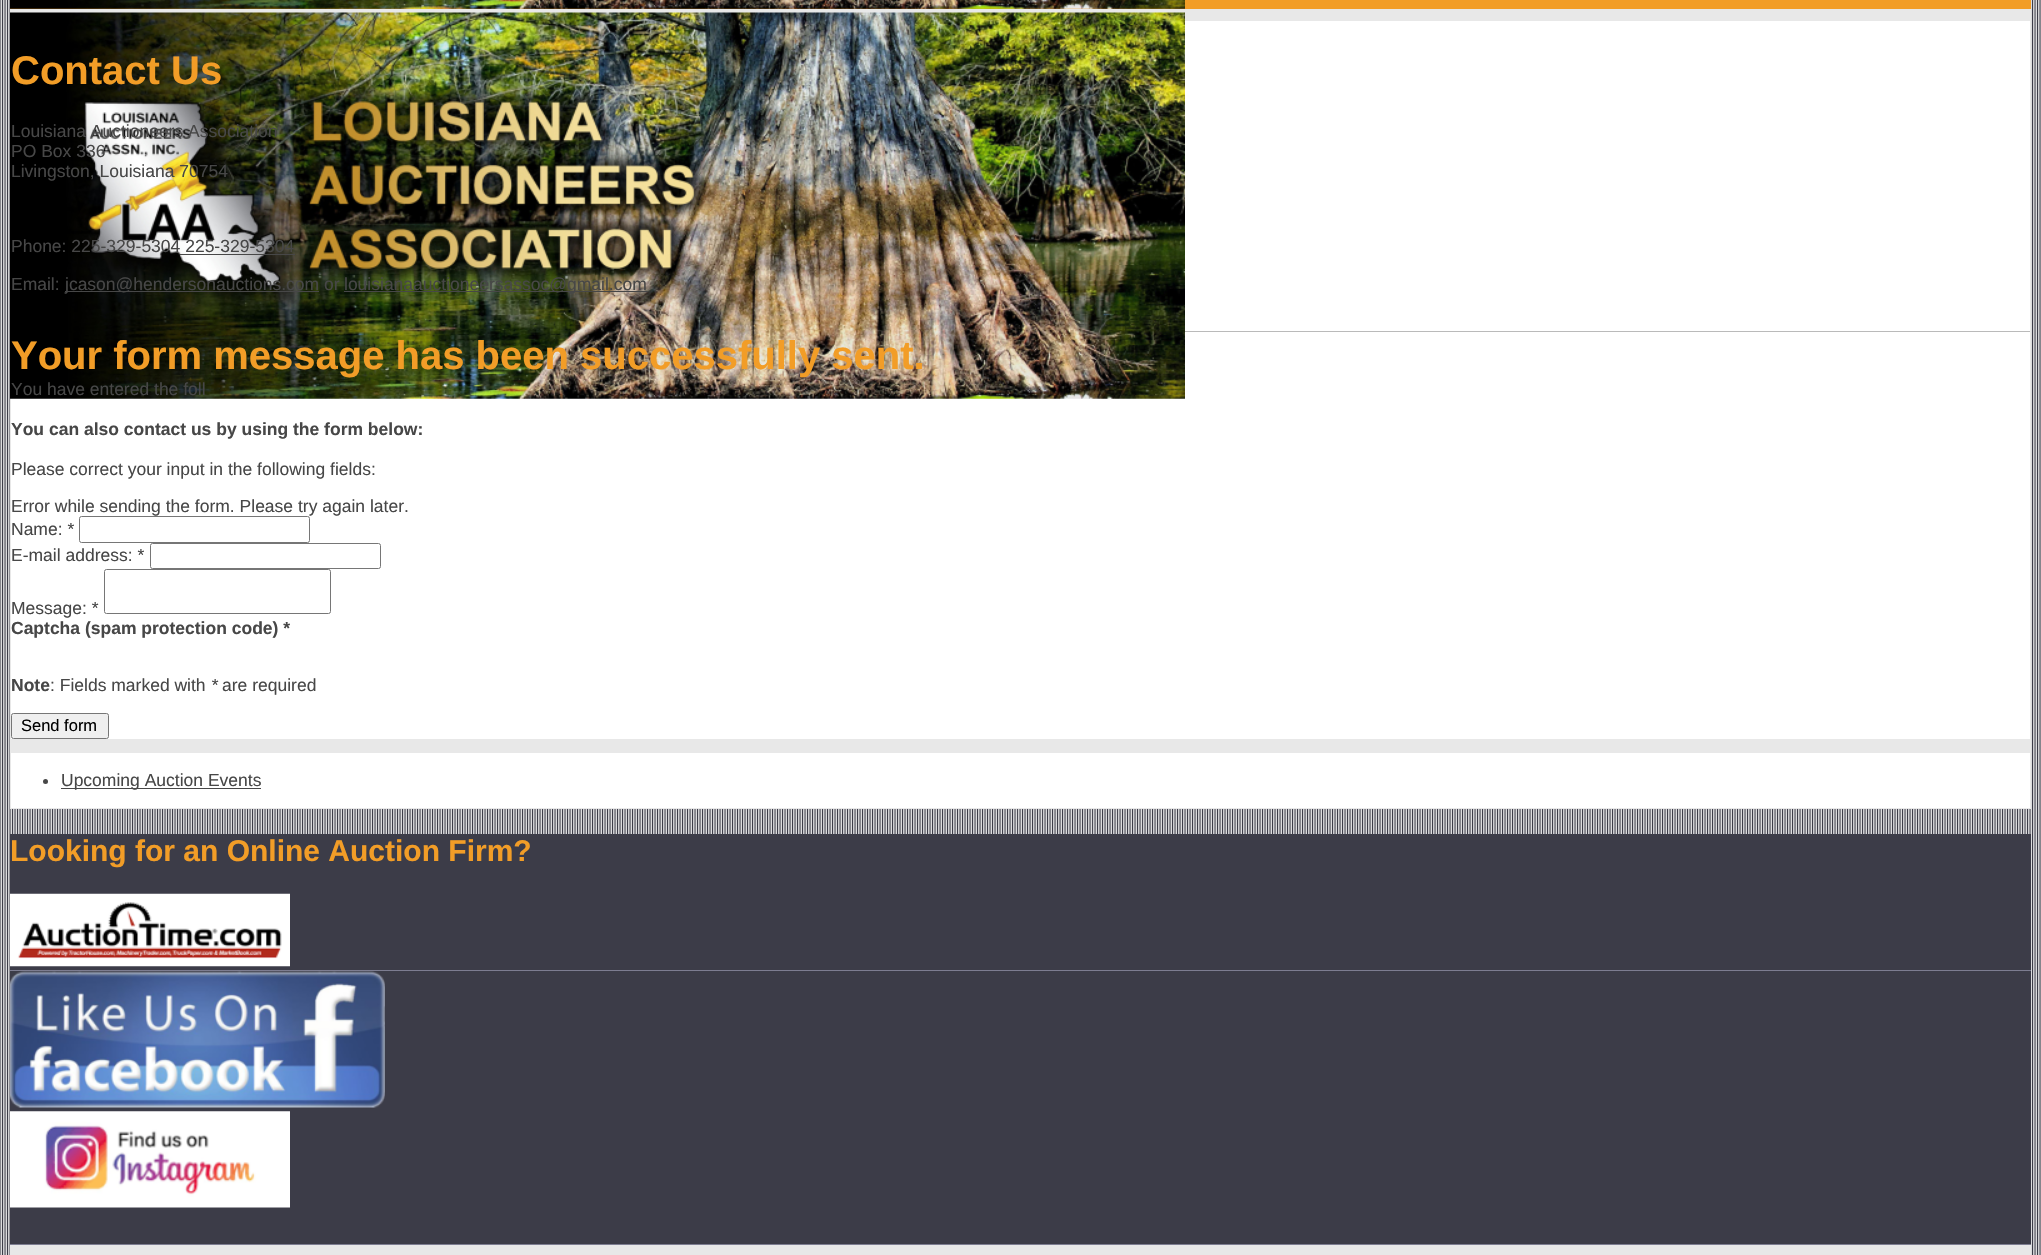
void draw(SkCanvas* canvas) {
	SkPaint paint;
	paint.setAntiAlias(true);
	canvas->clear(0xff3c3c48);
	canvas->drawImageRect(SkImages::DeferredFromEncodedData(SkData::MakeFromFileName("img1.png")), SkRect::MakeXYWH(0, 0, 2041, 1255), SkSamplingOptions());
	paint.setColor(0xfff29d27);
	canvas->drawRect(SkRect::MakeXYWH(10, 0, 2021, 9), paint);
	canvas->drawImageRect(SkImages::DeferredFromEncodedData(SkData::MakeFromFileName("img2.png")), SkRect::MakeXYWH(10, 0, 1175, 9), SkSamplingOptions());
	paint.setColor(0xffffffff);
	canvas->drawRect(SkRect::MakeXYWH(11, 21, 2019, 718), paint);
	paint.setColor(0xffe8e8e8);
	canvas->drawRect(SkRect::MakeXYWH(11, 9, 2019, 12), paint);
	canvas->drawRect(SkRect::MakeXYWH(2030, 9, 1, 800), paint);
	canvas->drawRect(SkRect::MakeXYWH(10, 739, 2021, 1), paint);
	canvas->drawRect(SkRect::MakeXYWH(10, 9, 1, 731), paint);
	canvas->drawImageRect(SkImages::DeferredFromEncodedData(SkData::MakeFromFileName("img3.png")), SkRect::MakeXYWH(10, 12, 1175, 387), SkSamplingOptions());
	SkFont f1(fontMgr->matchFamilyStyle("Liberation Sans", SkFontStyle::Bold()), 40);
	f1.setSubpixel(true);
	paint.setColor(0xfff29d27);
	canvas->drawString("Contact Us", 11, 84, f1, paint);
	SkFont f2(fontMgr->matchFamilyStyle("Liberation Sans", SkFontStyle::Normal()), 17.5);
	f2.setSubpixel(true);
	paint.setColor(0xff474747);
	canvas->drawString("Louisiana Auctioneers Association", 11, 137, f2, paint);
	canvas->drawString("PO Box 336", 11, 157, f2, paint);
	canvas->drawString("Livingston, Louisiana 70754", 11, 177, f2, paint);
	canvas->drawString("Phone: 225-329-5304 225-329-5304", 11, 252, f2, paint);
	canvas->drawRect(SkRect::MakeXYWH(180, 254, 115, 1), paint);
	canvas->drawString("Email:", 11, 290, f2, paint);
	canvas->drawRect(SkRect::MakeXYWH(65, 291, 254, 1), paint);
	canvas->drawString("jcason@hendersonauctions.com or", 65, 290, f2, paint);
	canvas->drawRect(SkRect::MakeXYWH(344, 291, 304, 1), paint);
	canvas->drawString("louisianaauctioneersassoc@gmail.com", 344, 290, f2, paint);
	paint.setColor(0xffbababa);
	canvas->drawRect(SkRect::MakeXYWH(1185, 331, 845, 1), paint);
	paint.setColor(0xfff29d27);
	canvas->drawString("Your form message has been successfully sent.", 11, 369, f1, paint);
	paint.setColor(0xff474747);
	canvas->drawString("You have entered the foll", 11, 395, f2, paint);
	SkFont f3(fontMgr->matchFamilyStyle("Liberation Sans", SkFontStyle::Bold()), 17.5);
	f3.setSubpixel(true);
	canvas->drawString("You can also contact us by using the form below:", 11, 435, f3, paint);
	canvas->drawString("Please correct your input in the following fields:", 11, 475, f2, paint);
	canvas->drawString("Error while sending the form. Please try again later.", 11, 512, f2, paint);
	canvas->drawString("Name: *", 11, 535, f2, paint);
	paint.setStroke(true);
	paint.setStrokeWidth(1);
	paint.setColor(0xff767676);
	canvas->drawRoundRect(SkRect::MakeXYWH(79.5, 516.5, 230, 26), 2, 2, paint);
	paint.setStroke(false);
	paint.setColor(0xff474747);
	canvas->drawString("E-mail address: *", 11, 561, f2, paint);
	paint.setStroke(true);
	paint.setColor(0xff767676);
	canvas->drawRoundRect(SkRect::MakeXYWH(150.5, 543.5, 230, 25), 2, 2, paint);
	paint.setStroke(false);
	paint.setColor(0xff474747);
	canvas->drawString("Message: *", 11, 614, f2, paint);
	paint.setStroke(true);
	paint.setColor(0xff767676);
	canvas->drawRoundRect(SkRect::MakeXYWH(104.5, 569.5, 226, 44), 2, 2, paint);
	paint.setStroke(false);
	paint.setColor(0xff474747);
	canvas->drawString("Captcha (spam protection code) *", 11, 634, f3, paint);
	canvas->drawString("Note", 11, 691, f3, paint);
	canvas->drawString(": Fields marked with", 50, 691, f2, paint);
	SkFont f4(fontMgr->matchFamilyStyle("Liberation Sans", SkFontStyle::Italic()), 17.5);
	f4.setSubpixel(true);
	canvas->drawString("*", 211, 691, f4, paint);
	canvas->drawString("are required", 222, 691, f2, paint);
	paint.setColor(0xffefefef);
	canvas->drawRoundRect(SkRect::MakeXYWH(11.5, 713.5, 97, 25), 2, 2, paint);
	paint.setStroke(true);
	paint.setColor(0xff767676);
	canvas->drawRoundRect(SkRect::MakeXYWH(11.5, 713.5, 97, 25), 2, 2, paint);
	SkFont f5(fontMgr->matchFamilyStyle("Liberation Sans", SkFontStyle::Normal()), 16.5);
	f5.setSubpixel(true);
	paint.setStroke(false);
	paint.setColor(0xff000000);
	canvas->drawString("Send form", 21, 731, f5, paint);
	paint.setColor(0xffffffff);
	canvas->drawRect(SkRect::MakeXYWH(11, 753, 2019, 55), paint);
	paint.setColor(0xffe8e8e8);
	canvas->drawRect(SkRect::MakeXYWH(11, 740, 2019, 13), paint);
	canvas->drawRect(SkRect::MakeXYWH(10, 808, 2021, 1), paint);
	canvas->drawRect(SkRect::MakeXYWH(10, 740, 1, 69), paint);
	paint.setColor(0xff474747);
	canvas->drawCircle(45.5, 781.5, 2.5, paint);
	canvas->drawRect(SkRect::MakeXYWH(61, 788, 200, 1), paint);
	canvas->drawString("Upcoming Auction Events", 61, 786, f2, paint);
	paint.setColor(0xff3c3c48);
	canvas->drawRect(SkRect::MakeXYWH(10, 834, 2021, 410), paint);
	SkFont f6(fontMgr->matchFamilyStyle("Liberation Sans", SkFontStyle::Bold()), 30);
	f6.setSubpixel(true);
	paint.setColor(0xfff29d27);
	canvas->drawString("Looking for an Online Auction Firm?", 10, 861, f6, paint);
	canvas->drawImageRect(SkImages::DeferredFromEncodedData(SkData::MakeFromFileName("img4.png")), SkRect::MakeXYWH(10, 893, 280, 74), SkSamplingOptions());
	paint.setColor(0xff7d7d91);
	canvas->drawRect(SkRect::MakeXYWH(10, 970, 2021, 1), paint);
	canvas->drawImageRect(SkImages::DeferredFromEncodedData(SkData::MakeFromFileName("img5.png")), SkRect::MakeXYWH(10, 971, 375, 137), SkSamplingOptions());
	canvas->drawImageRect(SkImages::DeferredFromEncodedData(SkData::MakeFromFileName("img6.png")), SkRect::MakeXYWH(10, 1111, 280, 97), SkSamplingOptions());
	canvas->drawRect(SkRect::MakeXYWH(10, 1244, 2021, 1), paint);
	paint.setColor(0xffe8e8e8);
	canvas->drawRect(SkRect::MakeXYWH(10, 1245, 2021, 10), paint);
}
